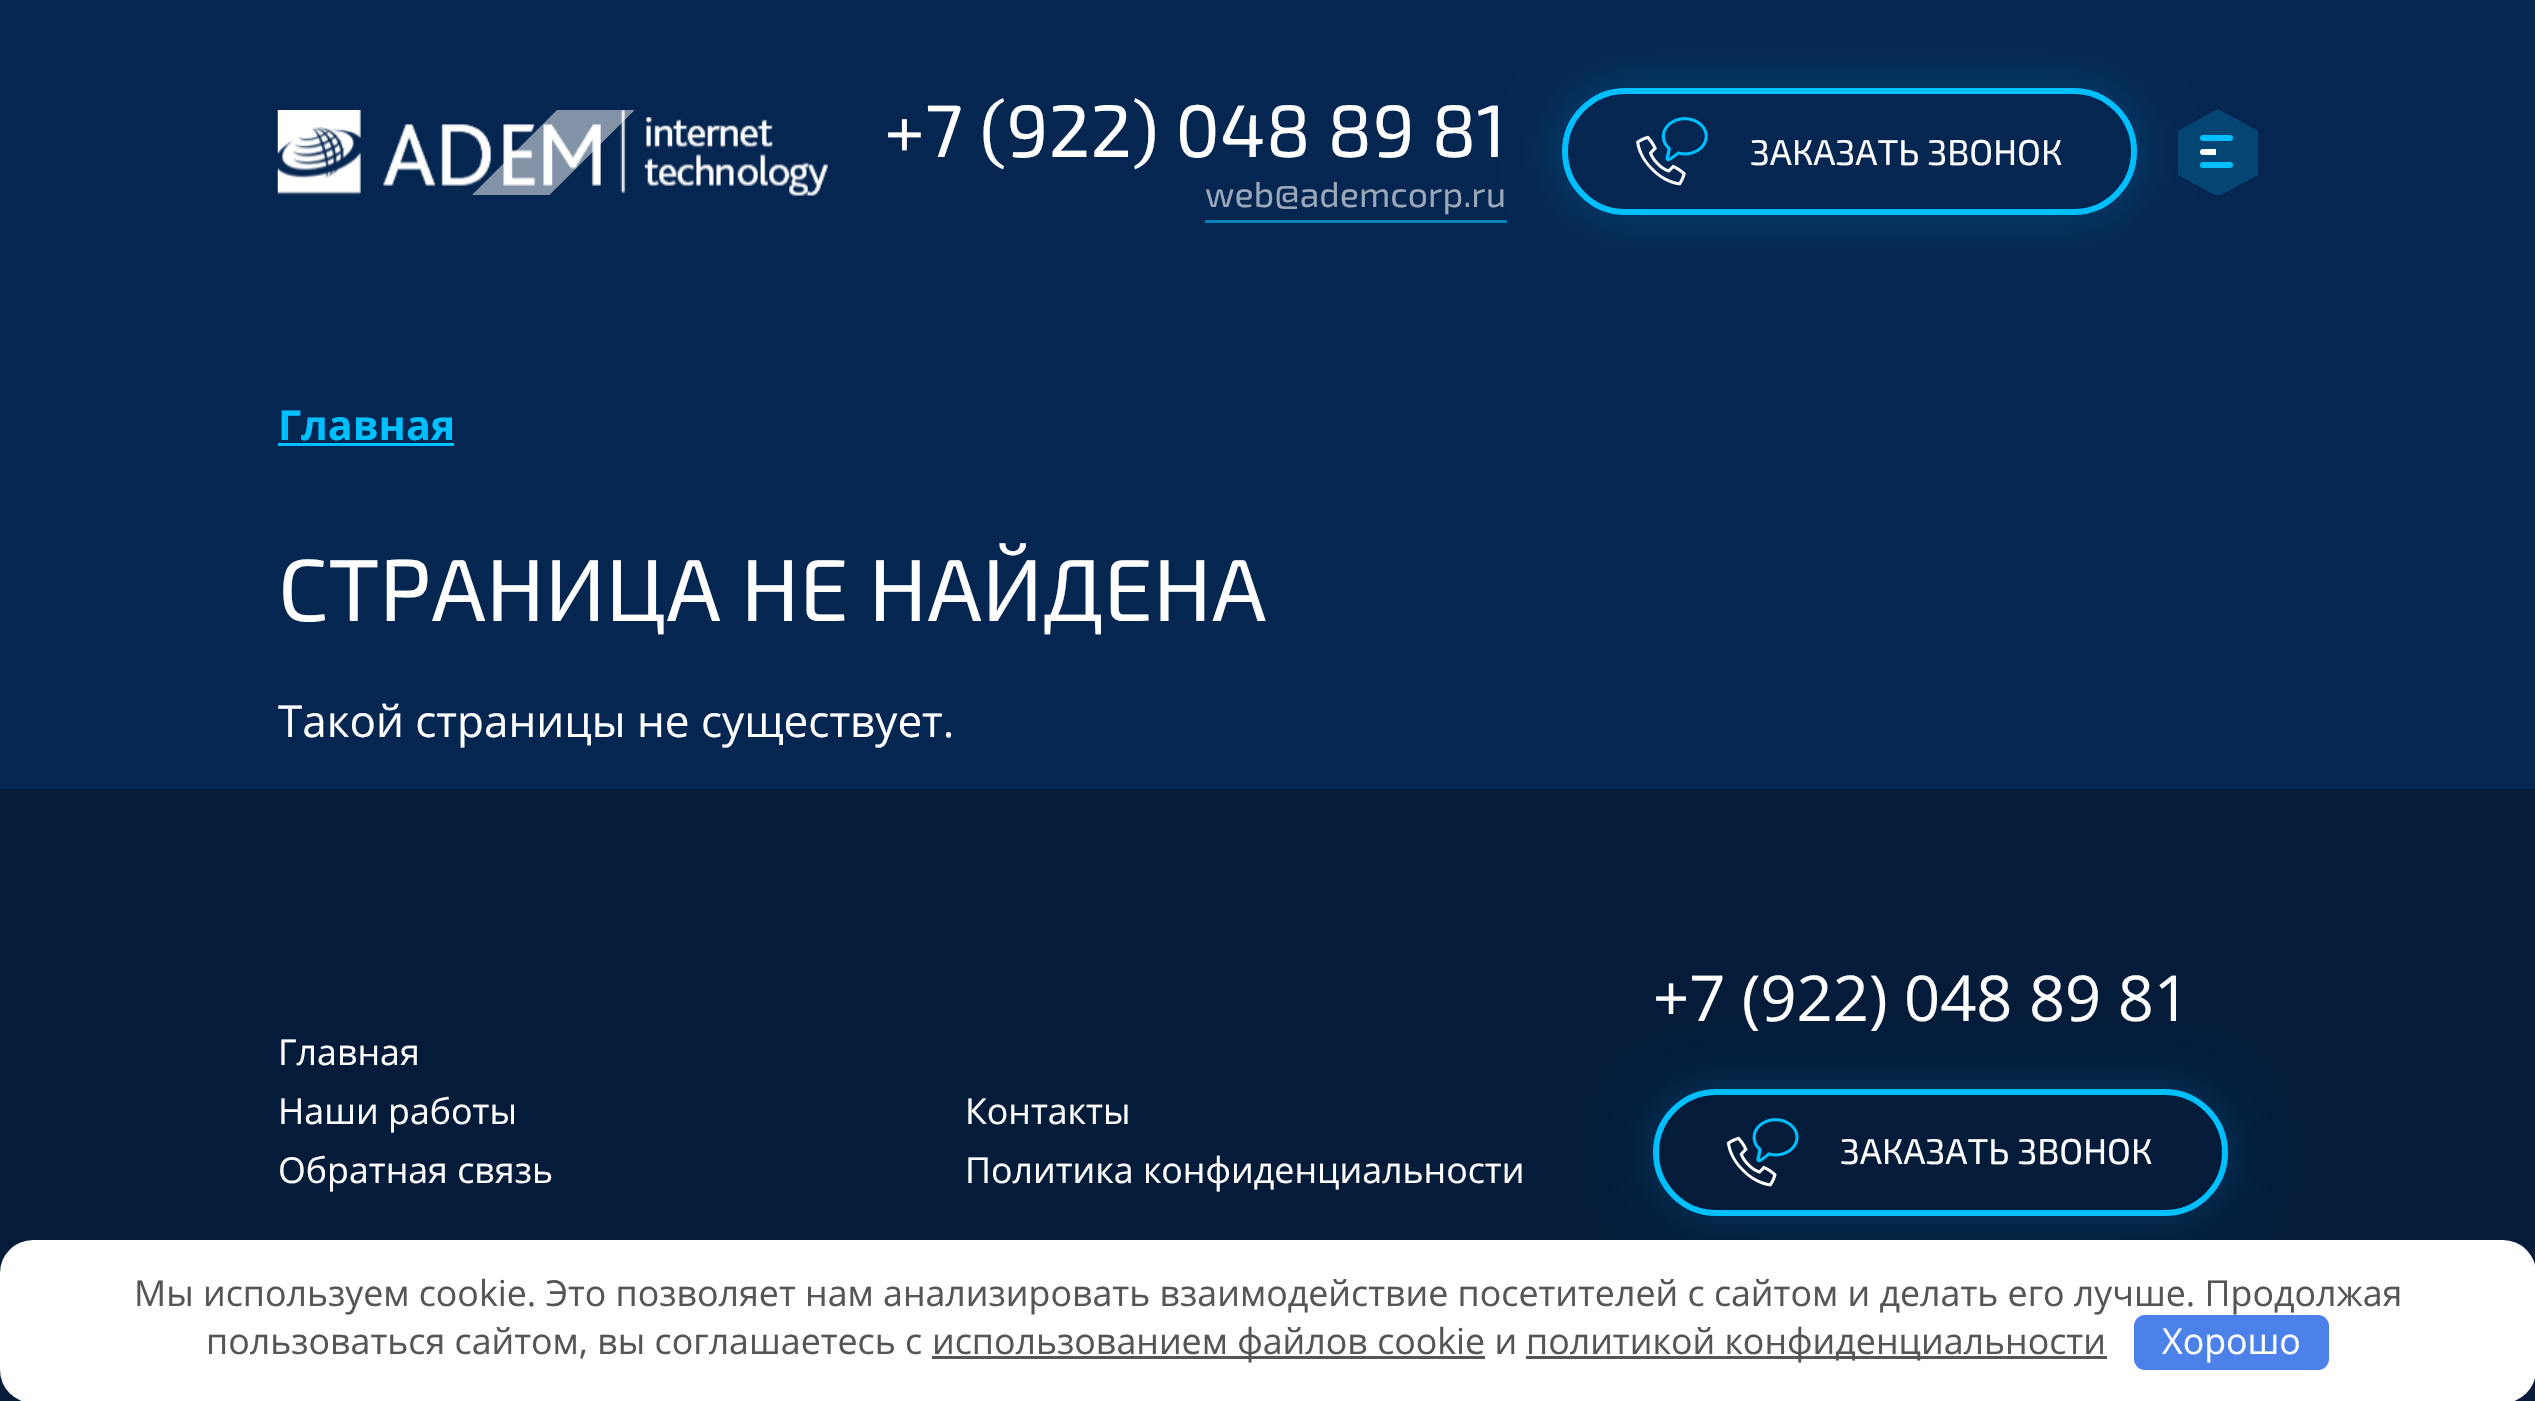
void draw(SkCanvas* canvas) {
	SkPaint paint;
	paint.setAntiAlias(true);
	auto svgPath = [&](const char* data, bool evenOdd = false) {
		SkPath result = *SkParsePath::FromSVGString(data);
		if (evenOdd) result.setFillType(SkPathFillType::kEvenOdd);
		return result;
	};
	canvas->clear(0xff052651);
	canvas->save();
	canvas->clipRect(SkRect::MakeXYWH(278, 110, 550, 85));
	paint.setColor(0xff8293a8);
	canvas->drawPath(svgPath("M339 328L728-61L767-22L378 366Z"), paint);
	canvas->restore();
	canvas->drawImageRect(SkImages::DeferredFromEncodedData(SkData::MakeFromFileName("img1.png")), SkRect::MakeXYWH(277, 110, 551, 86), SkSamplingOptions());
	SkFont f1(fontMgr->matchFamilyStyle("Exo 2", SkFontStyle::Normal()), 74.25);
	f1.setSubpixel(true);
	paint.setColor(0xffffffff);
	canvas->drawString("+7 (922) 048 89 81", 884, 157, f1, paint);
	canvas->save();
	canvas->clipPath(svgPath("M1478 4H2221V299H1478ZM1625.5 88H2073.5C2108.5 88 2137 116.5 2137 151.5C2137 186.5 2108.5 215 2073.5 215H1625.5C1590.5 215 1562 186.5 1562 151.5C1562 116.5 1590.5 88 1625.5 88Z", true), true);
	paint.setColor(0x3300bfff);
	paint.setMaskFilter(SkMaskFilter::MakeBlur(kNormal_SkBlurStyle, 27.5));
	canvas->drawRoundRect(SkRect::MakeXYWH(1562, 88, 575, 127), 63.5, 63.5, paint);
	paint.setMaskFilter(nullptr);
	canvas->restore();
	paint.setColor(0xff0282b9);
	canvas->drawRect(SkRect::MakeXYWH(1205, 220, 302, 3), paint);
	SkFont f2(fontMgr->matchFamilyStyle("Exo 2", SkFontStyle::Normal()), 35.75);
	f2.setSubpixel(true);
	paint.setColor(0xff9ba8b9);
	canvas->drawString("web@ademcorp.ru", 1205, 207, f2, paint);
	paint.setStroke(true);
	paint.setStrokeWidth(6);
	paint.setColor(0xff00bfff);
	canvas->drawRoundRect(SkRect::MakeXYWH(1565, 91, 569, 121), 60.5, 60.5, paint);
	canvas->drawImageRect(SkImages::DeferredFromEncodedData(SkData::MakeFromFileName("img2.png")), SkRect::MakeXYWH(1636, 117, 72, 69), SkSamplingOptions());
	paint.setStroke(false);
	paint.setColor(0xffffffff);
	canvas->drawString("ЗАКАЗАТЬ ЗВОНОК", 1750, 165, f2, paint);
	paint.setColor(0xff044574);
	canvas->drawPath(svgPath("M2218 109L2258 131V175L2221 195H2215L2178 175V131Z"), paint);
	{
		const SkColor colors[] = {0xffffffff, 0xffffffff, 0xff044574, 0xff044574};
		const float stops[] = {0, 0.5, 0.5, 1};
		const SkPoint ends[] = {{2200, 151}, {2233, 151}};
		paint.setShader(SkGradientShader::MakeLinear(ends, colors, stops, 4, SkTileMode::kClamp));
		paint.setAlpha(255);
	}
	canvas->drawRoundRect(SkRect::MakeXYWH(2200, 149, 33, 6), 3, 3, paint);
	paint.setShader(nullptr);
	paint.setColor(0xff00bfff);
	canvas->drawRoundRect(SkRect::MakeXYWH(2200, 135, 33, 6), 3, 3, paint);
	canvas->drawRoundRect(SkRect::MakeXYWH(2200, 162, 33, 6), 3, 3, paint);
	SkFont f3(fontMgr->matchFamilyStyle("Open Sans", SkFontStyle::Bold()), 41.25);
	f3.setSubpixel(true);
	canvas->drawString("Главная", 278, 440, f3, paint);
	canvas->drawRect(SkRect::MakeXYWH(278, 443, 176, 3), paint);
	SkFont f4(fontMgr->matchFamilyStyle("Exo 2", SkFontStyle::Normal()), 88);
	f4.setSubpixel(true);
	paint.setColor(0xffffffff);
	canvas->drawString("СТРАНИЦА НЕ НАЙДЕНА", 278, 621, f4, paint);
	SkFont f5(fontMgr->matchFamilyStyle("Open Sans", SkFontStyle::Normal()), 44);
	f5.setSubpixel(true);
	canvas->drawString("Такой страницы не существует.", 278, 737, f5, paint);
	paint.setColor(0xff041b3a);
	canvas->drawRect(SkRect::MakeXYWH(0, 789, 2535, 612), paint);
	SkFont f6(fontMgr->matchFamilyStyle("Open Sans", SkFontStyle::Normal()), 35.75);
	f6.setSubpixel(true);
	paint.setColor(0xffffffff);
	canvas->drawString("Главная", 278, 1065, f6, paint);
	canvas->drawString("Наши работы", 278, 1124, f6, paint);
	canvas->drawString("Обратная связь", 278, 1183, f6, paint);
	canvas->drawString("Контакты", 965, 1124, f6, paint);
	canvas->drawString("Политика конфиденциальности", 965, 1183, f6, paint);
	SkFont f7(fontMgr->matchFamilyStyle("Open Sans", SkFontStyle::Normal()), 63.25);
	f7.setSubpixel(true);
	canvas->drawString("+7 (922) 048 89 81", 1653, 1021, f7, paint);
	canvas->save();
	canvas->clipPath(svgPath("M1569 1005H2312V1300H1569ZM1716.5 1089H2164.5C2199.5 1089 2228 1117.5 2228 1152.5C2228 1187.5 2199.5 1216 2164.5 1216H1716.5C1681.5 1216 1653 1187.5 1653 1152.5C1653 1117.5 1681.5 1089 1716.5 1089Z", true), true);
	paint.setColor(0x3300bfff);
	paint.setMaskFilter(SkMaskFilter::MakeBlur(kNormal_SkBlurStyle, 27.5));
	canvas->drawRoundRect(SkRect::MakeXYWH(1653, 1089, 575, 127), 63.5, 63.5, paint);
	paint.setMaskFilter(nullptr);
	canvas->restore();
	paint.setStroke(true);
	paint.setColor(0xff00bfff);
	canvas->drawRoundRect(SkRect::MakeXYWH(1656, 1092, 569, 121), 60.5, 60.5, paint);
	canvas->drawImageRect(SkImages::DeferredFromEncodedData(SkData::MakeFromFileName("img3.png")), SkRect::MakeXYWH(1727, 1118, 72, 69), SkSamplingOptions());
	paint.setStroke(false);
	paint.setColor(0xffffffff);
	canvas->drawString("ЗАКАЗАТЬ ЗВОНОК", 1840, 1164, f2, paint);
	canvas->drawRoundRect(SkRect::MakeXYWH(0, 1240, 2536, 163), 33, 33, paint);
	paint.setColor(0xff555555);
	canvas->drawString("Мы используем cookie. Это позволяет нам анализировать взаимодействие посетителей с сайтом и делать его лучше. Продолжая", 134, 1306, f6, paint);
	canvas->drawString("пользоваться сайтом, вы соглашаетесь с", 206, 1354, f6, paint);
	canvas->drawRect(SkRect::MakeXYWH(932, 1356, 553, 3), paint);
	canvas->drawString("использованием файлов cookie и", 932, 1354, f6, paint);
	canvas->drawRect(SkRect::MakeXYWH(1526, 1356, 581, 3), paint);
	canvas->drawString("политикой конфиденциальности", 1526, 1354, f6, paint);
	paint.setColor(0xff4b81e8);
	canvas->drawRoundRect(SkRect::MakeXYWH(2134, 1315, 195, 55), 11, 11, paint);
	paint.setColor(0xffffffff);
	canvas->drawString("Хорошо", 2162, 1354, f6, paint);
}
